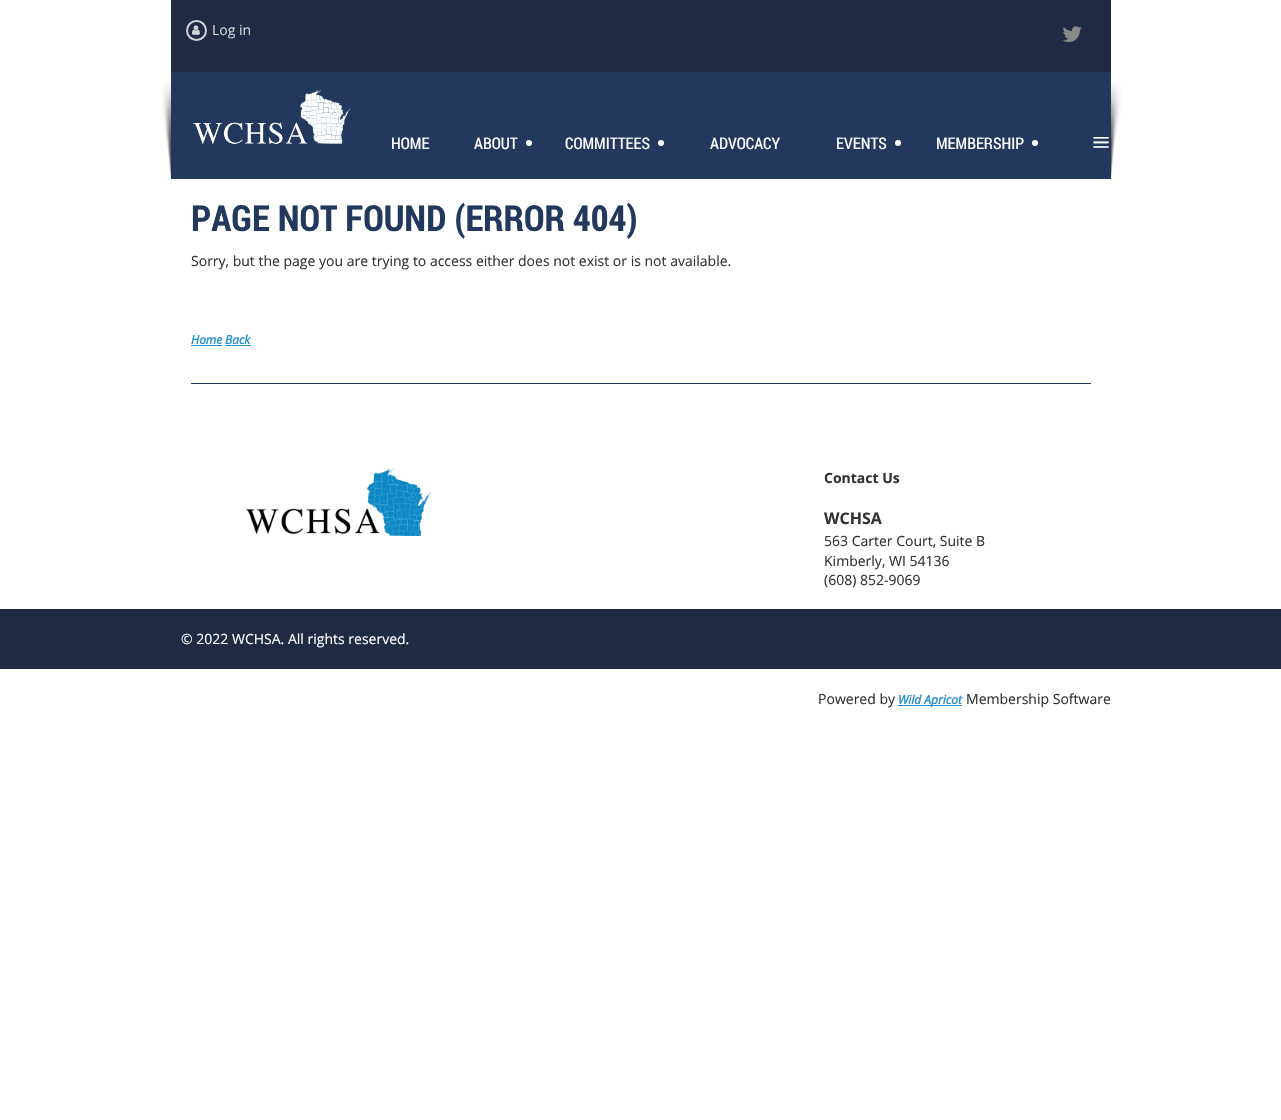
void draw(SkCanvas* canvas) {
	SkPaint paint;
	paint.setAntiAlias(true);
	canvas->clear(0xffffffff);
	paint.setColor(0xff202a44);
	canvas->drawRect(SkRect::MakeXYWH(171, 0, 940, 72), paint);
	paint.setStroke(true);
	paint.setStrokeWidth(2);
	paint.setColor(0xffd2d4da);
	canvas->drawCircle(196.5, 30.5, 9.5, paint);
	canvas->drawImageRect(SkImages::DeferredFromEncodedData(SkData::MakeFromFileName("img1.png")), SkRect::MakeXYWH(192, 25, 8, 10), SkSamplingOptions());
	SkFont f1(fontMgr->matchFamilyStyle("Open Sans", SkFontStyle::Normal()), 14);
	f1.setSubpixel(true);
	paint.setStroke(false);
	canvas->drawString("Log in", 212, 35, f1, paint);
	canvas->drawImageRect(SkImages::DeferredFromEncodedData(SkData::MakeFromFileName("img2.png")), SkRect::MakeXYWH(1062, 26, 20, 16), SkSamplingOptions());
	canvas->drawImageRect(SkImages::DeferredFromEncodedData(SkData::MakeFromFileName("img3.png")), SkRect::MakeXYWH(162, 82, 9, 97), SkSamplingOptions());
	paint.setColor(0xff22395d);
	canvas->drawRect(SkRect::MakeXYWH(171, 72, 940, 107), paint);
	canvas->drawImageRect(SkImages::DeferredFromEncodedData(SkData::MakeFromFileName("img4.png")), SkRect::MakeXYWH(193, 89, 157, 55), SkSamplingOptions());
	SkFont f2(fontMgr->matchFamilyStyle("Roboto Condensed", SkFontStyle::Normal()), 16);
	f2.setSubpixel(true);
	paint.setColor(0xffffffff);
	canvas->drawString("HOME", 391, 149, f2, paint);
	canvas->drawString("ABOUT", 474, 149, f2, paint);
	canvas->drawCircle(529, 143, 3, paint);
	canvas->drawString("COMMITTEES", 565, 149, f2, paint);
	canvas->drawCircle(661, 143, 3, paint);
	canvas->drawString("ADVOCACY", 710, 149, f2, paint);
	canvas->drawString("EVENTS", 836, 149, f2, paint);
	canvas->drawCircle(898, 143, 3, paint);
	canvas->drawString("MEMBERSHIP", 936, 149, f2, paint);
	canvas->drawCircle(1035, 143, 3, paint);
	SkFont f3(fontMgr->matchFamilyStyle("Liberation Serif", SkFontStyle::Normal()), 32);
	f3.setSubpixel(true);
	canvas->drawString("≡", 1092, 153, f3, paint);
	canvas->drawImageRect(SkImages::DeferredFromEncodedData(SkData::MakeFromFileName("img5.png")), SkRect::MakeXYWH(1111, 82, 10, 97), SkSamplingOptions());
	SkFont f4(fontMgr->matchFamilyStyle("Roboto Condensed", SkFontStyle::Bold()), 36);
	f4.setSubpixel(true);
	paint.setColor(0xff22395d);
	canvas->drawString("PAGE NOT FOUND (ERROR 404)", 191, 231, f4, paint);
	paint.setColor(0xff333333);
	canvas->drawString("Sorry, but the page you are trying to access either does not exist or is not available.", 191, 266, f1, paint);
	SkFont f5(fontMgr->matchFamilyStyle("Open Sans", SkFontStyle::BoldItalic()), 12);
	f5.setSubpixel(true);
	paint.setColor(0xff2b90d1);
	canvas->drawString("Home", 191, 344, f5, paint);
	canvas->drawRect(SkRect::MakeXYWH(191, 345, 31, 1), paint);
	canvas->drawString("Back", 225, 344, f5, paint);
	canvas->drawRect(SkRect::MakeXYWH(225, 345, 26, 1), paint);
	paint.setColor(0xff22395d);
	canvas->drawRect(SkRect::MakeXYWH(191, 383, 900, 1), paint);
	canvas->drawImageRect(SkImages::DeferredFromEncodedData(SkData::MakeFromFileName("img6.png")), SkRect::MakeXYWH(246, 468, 185, 68), SkSamplingOptions());
	SkFont f6(fontMgr->matchFamilyStyle("Open Sans", SkFontStyle::Bold()), 14);
	f6.setSubpixel(true);
	paint.setColor(0xff333333);
	canvas->drawString("Contact Us", 824, 483, f6, paint);
	SkFont f7(fontMgr->matchFamilyStyle("Open Sans", SkFontStyle::Bold()), 16);
	f7.setSubpixel(true);
	canvas->drawString("WCHSA", 824, 524, f7, paint);
	canvas->drawString("563 Carter Court, Suite B", 824, 546, f1, paint);
	canvas->drawString("Kimberly, WI 54136", 824, 566, f1, paint);
	canvas->drawString("(608) 852-9069", 824, 585, f1, paint);
	paint.setColor(0xff202a44);
	canvas->drawRect(SkRect::MakeXYWH(0, 609, 1281, 60), paint);
	paint.setColor(0xffffffff);
	canvas->drawString("© 2022 WCHSA. All rights reserved.", 181, 644, f1, paint);
	paint.setColor(0xff333333);
	canvas->drawString("Powered by", 818, 704, f1, paint);
	paint.setColor(0xff2b90d1);
	canvas->drawRect(SkRect::MakeXYWH(898, 705, 64, 1), paint);
	canvas->drawString("Wild Apricot", 898, 704, f5, paint);
	paint.setColor(0xff333333);
	canvas->drawString("Membership Software", 966, 704, f1, paint);
}
